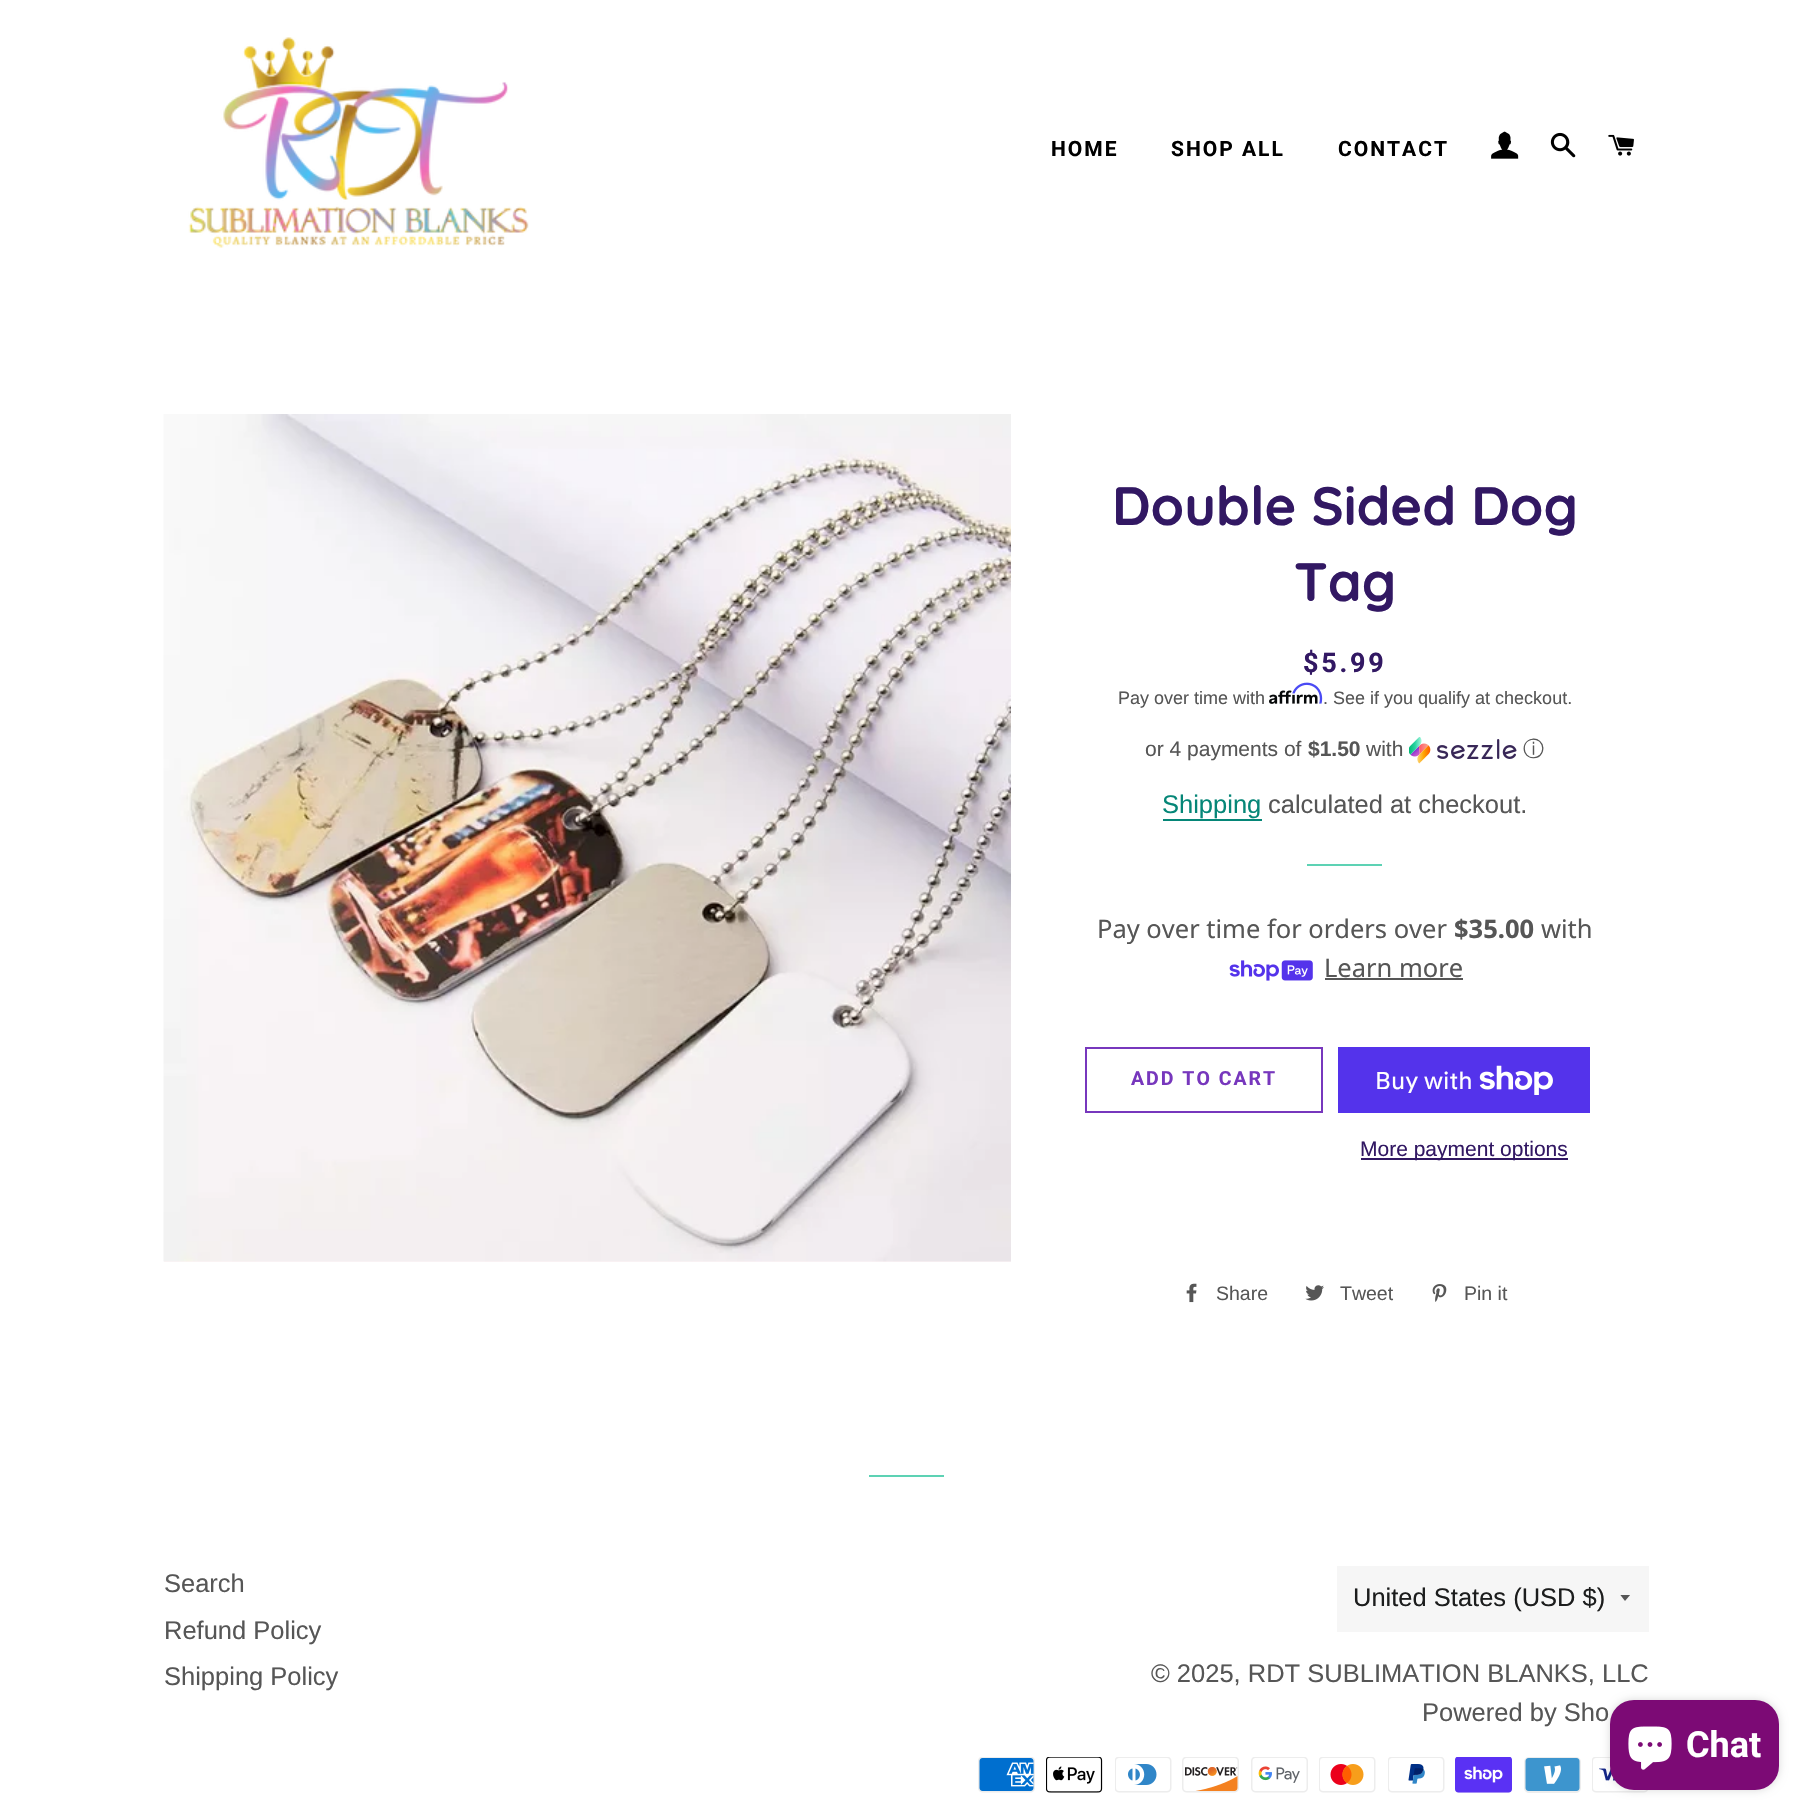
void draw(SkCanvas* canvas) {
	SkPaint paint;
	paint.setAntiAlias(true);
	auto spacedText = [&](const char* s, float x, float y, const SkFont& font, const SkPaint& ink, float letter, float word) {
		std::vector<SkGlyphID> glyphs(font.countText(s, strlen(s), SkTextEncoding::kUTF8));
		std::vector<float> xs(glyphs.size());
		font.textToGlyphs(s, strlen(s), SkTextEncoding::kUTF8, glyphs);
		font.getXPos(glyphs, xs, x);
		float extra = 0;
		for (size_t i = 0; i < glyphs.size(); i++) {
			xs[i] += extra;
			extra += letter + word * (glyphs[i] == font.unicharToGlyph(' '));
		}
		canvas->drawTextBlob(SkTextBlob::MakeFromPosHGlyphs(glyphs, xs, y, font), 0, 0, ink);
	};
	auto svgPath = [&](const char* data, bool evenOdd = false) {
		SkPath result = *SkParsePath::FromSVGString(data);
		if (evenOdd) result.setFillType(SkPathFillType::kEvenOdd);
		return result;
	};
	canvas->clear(0xffffffff);
	canvas->drawImageRect(SkImages::DeferredFromEncodedData(SkData::MakeFromFileName("img1.png")), SkRect::MakeXYWH(188, 37, 341, 211), SkSamplingOptions());
	SkFont f1(fontMgr->matchFamilyStyle("Roboto", SkFontStyle::Bold()), 21);
	f1.setSubpixel(true);
	paint.setColor(0xff000000);
	spacedText("HOME", 1051, 156, f1, paint, 2, 0);
	spacedText("SHOP ALL", 1171, 156, f1, paint, 2, 0);
	spacedText("CONTACT", 1338, 156, f1, paint, 2, 0);
	canvas->drawImageRect(SkImages::DeferredFromEncodedData(SkData::MakeFromFileName("img2.png")), SkRect::MakeXYWH(1491, 131, 28, 28), SkSamplingOptions());
	canvas->drawImageRect(SkImages::DeferredFromEncodedData(SkData::MakeFromFileName("img3.png")), SkRect::MakeXYWH(1550, 132, 26, 26), SkSamplingOptions());
	canvas->drawImageRect(SkImages::DeferredFromEncodedData(SkData::MakeFromFileName("img4.png")), SkRect::MakeXYWH(1608, 134, 26, 22), SkSamplingOptions());
	paint.setColor(0xfffff4f6);
	canvas->drawRect(SkRect::MakeXYWH(164, 1261, 847, 1), paint);
	canvas->drawImageRect(SkImages::DeferredFromEncodedData(SkData::MakeFromFileName("img5.png")), SkRect::MakeXYWH(163, 414, 848, 848), SkSamplingOptions());
	SkFont f2(fontMgr->matchFamilyStyle("Quicksand", SkFontStyle::Bold()), 54);
	f2.setSubpixel(true);
	paint.setColor(0xff321863);
	canvas->drawString("Double Sided Dog", 1112, 525, f2, paint);
	canvas->drawString("Tag", 1294, 601, f2, paint);
	SkFont f3(fontMgr->matchFamilyStyle("Roboto", SkFontStyle::Bold()), 27);
	f3.setSubpixel(true);
	spacedText("$5.99", 1303, 672, f3, paint, 2.75, 0);
	SkFont f4(fontMgr->matchFamilyStyle("Liberation Sans", SkFontStyle::Normal()), 18);
	f4.setSubpixel(true);
	paint.setColor(0xff565656);
	canvas->drawString("Pay over time with", 1118, 704, f4, paint);
	canvas->drawImageRect(SkImages::DeferredFromEncodedData(SkData::MakeFromFileName("img7.png")), SkRect::MakeXYWH(1269, 690, 49, 14), SkSamplingOptions());
	canvas->drawImageRect(SkImages::DeferredFromEncodedData(SkData::MakeFromFileName("img6.png")), SkRect::MakeXYWH(1292, 682, 31, 22), SkSamplingOptions());
	canvas->drawString(". See if you qualify at checkout.", 1323, 704, f4, paint);
	SkFont f5(fontMgr->matchFamilyStyle("Liberation Sans", SkFontStyle::Normal()), 21);
	f5.setSubpixel(true);
	canvas->drawString("or 4 payments of", 1145, 756, f5, paint);
	SkFont f6(fontMgr->matchFamilyStyle("Liberation Sans", SkFontStyle::Bold()), 21);
	f6.setSubpixel(true);
	canvas->drawString("$1.50", 1308, 756, f6, paint);
	canvas->drawString("with", 1366, 756, f5, paint);
	canvas->drawImageRect(SkImages::DeferredFromEncodedData(SkData::MakeFromFileName("img8.png")), SkRect::MakeXYWH(1409, 737, 108, 27), SkSamplingOptions());
	SkFont f7(fontMgr->matchFamilyStyle("WenQuanYi Zen Hei", SkFontStyle(500, SkFontStyle::kNormal_Width, SkFontStyle::kUpright_Slant)), 21);
	f7.setSubpixel(true);
	canvas->drawString("ⓘ", 1523, 756, f7, paint);
	SkFont f8(fontMgr->matchFamilyStyle("Liberation Sans", SkFontStyle::Normal()), 25.5);
	f8.setSubpixel(true);
	paint.setColor(0xff058677);
	canvas->drawString("Shipping", 1162, 813, f8, paint);
	canvas->drawRect(SkRect::MakeXYWH(1163, 819, 99, 2), paint);
	paint.setColor(0xff565656);
	canvas->drawString("calculated at checkout.", 1268, 813, f8, paint);
	paint.setColor(0xff5dd2b4);
	canvas->drawRect(SkRect::MakeXYWH(1307, 864, 75, 2), paint);
	SkFont f9(fontMgr->matchFamilyStyle("Noto Sans", SkFontStyle::Normal()), 25.5);
	f9.setSubpixel(true);
	paint.setColor(0xff565656);
	canvas->drawString("Pay over time for orders over", 1097, 938, f9, paint);
	SkFont f10(fontMgr->matchFamilyStyle("Noto Sans", SkFontStyle::Bold()), 25.5);
	f10.setSubpixel(true);
	canvas->drawString("$35.00", 1454, 938, f10, paint);
	canvas->drawString("with", 1541, 938, f9, paint);
	canvas->drawImageRect(SkImages::DeferredFromEncodedData(SkData::MakeFromFileName("img9.png")), SkRect::MakeXYWH(1229, 960, 84, 21), SkSamplingOptions());
	canvas->drawString("Learn more", 1324, 977, f9, paint);
	canvas->drawRect(SkRect::MakeXYWH(1325, 978, 138, 2), paint);
	paint.setStroke(true);
	paint.setStrokeWidth(2);
	paint.setColor(0xff7737bd);
	canvas->drawRect(SkRect::MakeXYWH(1086, 1048, 236, 64), paint);
	SkFont f11(fontMgr->matchFamilyStyle("Roboto", SkFontStyle::Bold()), 19.5);
	f11.setSubpixel(true);
	paint.setStroke(false);
	spacedText("ADD TO CART", 1131, 1085, f11, paint, 2, 0);
	paint.setColor(0xff5433eb);
	canvas->drawRect(SkRect::MakeXYWH(1338, 1047, 252, 66), paint);
	SkFont f12(fontMgr->matchFamilyStyle("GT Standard", SkFontStyle::Normal()), 24);
	f12.setSubpixel(true);
	paint.setColor(0xffffffff);
	canvas->drawString("Buy with", 1375, 1089, f12, paint);
	canvas->drawImageRect(SkImages::DeferredFromEncodedData(SkData::MakeFromFileName("img10.png")), SkRect::MakeXYWH(1479, 1065, 74, 30), SkSamplingOptions());
	paint.setColor(0xff321863);
	canvas->drawRect(SkRect::MakeXYWH(1361, 1158, 207, 2), paint);
	canvas->drawString("More payment options", 1360, 1156, f5, paint);
	canvas->drawImageRect(SkImages::DeferredFromEncodedData(SkData::MakeFromFileName("img11.png")), SkRect::MakeXYWH(1186, 1283, 11, 20), SkSamplingOptions());
	SkFont f13(fontMgr->matchFamilyStyle("Liberation Sans", SkFontStyle::Normal()), 19.5);
	f13.setSubpixel(true);
	paint.setColor(0xff565656);
	canvas->drawString("Share", 1216, 1300, f13, paint);
	canvas->drawImageRect(SkImages::DeferredFromEncodedData(SkData::MakeFromFileName("img12.png")), SkRect::MakeXYWH(1305, 1285, 19, 16), SkSamplingOptions());
	canvas->drawString("Tweet", 1340, 1300, f13, paint);
	canvas->drawImageRect(SkImages::DeferredFromEncodedData(SkData::MakeFromFileName("img13.png")), SkRect::MakeXYWH(1432, 1284, 15, 18), SkSamplingOptions());
	canvas->drawString("Pin it", 1464, 1300, f13, paint);
	paint.setColor(0xff5dd2b4);
	canvas->drawRect(SkRect::MakeXYWH(869, 1475, 75, 2), paint);
	paint.setColor(0xff565656);
	canvas->drawString("Search", 164, 1592, f8, paint);
	canvas->drawString("Refund Policy", 164, 1639, f8, paint);
	canvas->drawString("Shipping Policy", 164, 1685, f8, paint);
	paint.setColor(0xfff6f6f6);
	canvas->drawRect(SkRect::MakeXYWH(1337, 1566, 312, 66), paint);
	canvas->save();
	canvas->clipRect(SkRect::MakeXYWH(1620, 1595, 12, 7));
	paint.setColor(0xff565656);
	canvas->drawPath(svgPath("M1620 1594.5L1625 1601L1630.5 1594.5Z"), paint);
	canvas->restore();
	paint.setColor(0xff1c1d1d);
	canvas->drawString("United States (USD $)", 1353, 1606, f8, paint);
	paint.setColor(0xff565656);
	canvas->drawString("© 2025, RDT SUBLIMATION BLANKS, LLC", 1151, 1682, f8, paint);
	canvas->drawString("Powered by Sho", 1422, 1721, f8, paint);
	canvas->drawImageRect(SkImages::DeferredFromEncodedData(SkData::MakeFromFileName("img14.png")), SkRect::MakeXYWH(978, 1757, 57, 36), SkSamplingOptions());
	canvas->drawImageRect(SkImages::DeferredFromEncodedData(SkData::MakeFromFileName("img15.png")), SkRect::MakeXYWH(1046, 1757, 57, 36), SkSamplingOptions());
	canvas->drawImageRect(SkImages::DeferredFromEncodedData(SkData::MakeFromFileName("img16.png")), SkRect::MakeXYWH(1115, 1757, 57, 36), SkSamplingOptions());
	canvas->drawImageRect(SkImages::DeferredFromEncodedData(SkData::MakeFromFileName("img17.png")), SkRect::MakeXYWH(1182, 1757, 57, 36), SkSamplingOptions());
	canvas->drawImageRect(SkImages::DeferredFromEncodedData(SkData::MakeFromFileName("img18.png")), SkRect::MakeXYWH(1251, 1757, 57, 36), SkSamplingOptions());
	canvas->drawImageRect(SkImages::DeferredFromEncodedData(SkData::MakeFromFileName("img19.png")), SkRect::MakeXYWH(1319, 1757, 57, 36), SkSamplingOptions());
	canvas->drawImageRect(SkImages::DeferredFromEncodedData(SkData::MakeFromFileName("img20.png")), SkRect::MakeXYWH(1388, 1757, 57, 36), SkSamplingOptions());
	canvas->drawImageRect(SkImages::DeferredFromEncodedData(SkData::MakeFromFileName("img21.png")), SkRect::MakeXYWH(1455, 1757, 57, 36), SkSamplingOptions());
	canvas->drawImageRect(SkImages::DeferredFromEncodedData(SkData::MakeFromFileName("img22.png")), SkRect::MakeXYWH(1524, 1757, 57, 36), SkSamplingOptions());
	canvas->drawImageRect(SkImages::DeferredFromEncodedData(SkData::MakeFromFileName("img23.png")), SkRect::MakeXYWH(1592, 1757, 56, 36), SkSamplingOptions());
	paint.setColor(0x26000000);
	paint.setMaskFilter(SkMaskFilter::MakeBlur(kNormal_SkBlurStyle, 4));
	canvas->drawRoundRect(SkRect::MakeXYWH(1610, 1700, 169, 90), 24, 24, paint);
	paint.setMaskFilter(nullptr);
	paint.setColor(0xff7c0a75);
	canvas->drawRoundRect(SkRect::MakeXYWH(1610, 1700, 169, 90), 24, 24, paint);
	canvas->drawImageRect(SkImages::DeferredFromEncodedData(SkData::MakeFromFileName("img24.png")), SkRect::MakeXYWH(1628, 1726, 44, 44), SkSamplingOptions());
	SkFont f14(fontMgr->matchFamilyStyle("Roboto", SkFontStyle::Bold()), 36);
	f14.setSubpixel(true);
	paint.setColor(0xffffffff);
	canvas->drawString("Chat", 1686, 1757, f14, paint);
}
